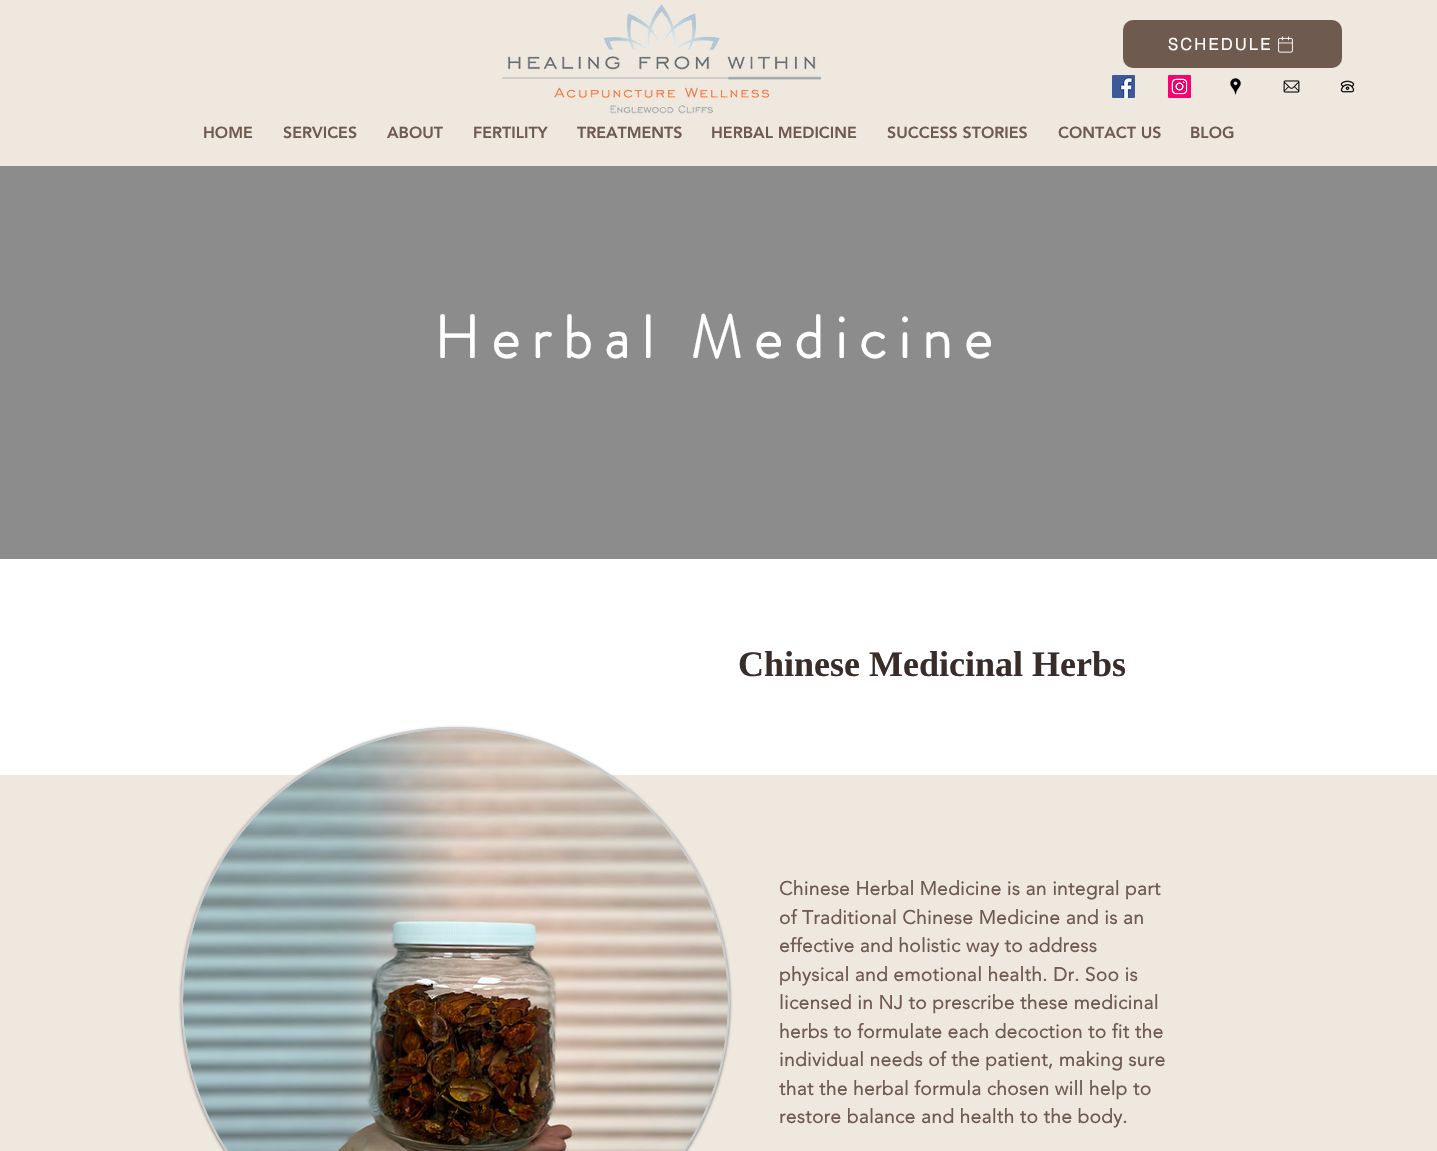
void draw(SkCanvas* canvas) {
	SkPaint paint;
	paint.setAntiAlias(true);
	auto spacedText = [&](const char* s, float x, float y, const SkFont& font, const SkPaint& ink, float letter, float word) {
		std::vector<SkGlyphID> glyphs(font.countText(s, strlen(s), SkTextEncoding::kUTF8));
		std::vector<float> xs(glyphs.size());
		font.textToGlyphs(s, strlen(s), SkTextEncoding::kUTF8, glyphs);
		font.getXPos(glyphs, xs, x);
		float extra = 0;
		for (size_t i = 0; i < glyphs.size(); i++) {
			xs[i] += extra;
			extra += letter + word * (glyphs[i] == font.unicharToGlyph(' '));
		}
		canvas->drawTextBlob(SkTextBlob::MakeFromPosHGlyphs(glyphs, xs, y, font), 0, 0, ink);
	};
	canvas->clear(0xff8c8c8c);
	paint.setColor(0xffeee8df);
	canvas->drawRect(SkRect::MakeXYWH(0, 0, 1437, 166), paint);
	paint.setColor(0xff6f5a50);
	canvas->drawRoundRect(SkRect::MakeXYWH(1123, 20, 219, 48), 10, 10, paint);
	SkFont f1(fontMgr->matchFamilyStyle("helvetica", SkFontStyle::Bold()), 16);
	f1.setSubpixel(true);
	paint.setColor(0xffffffff);
	spacedText("SCHEDULE", 1168, 50, f1, paint, 2.5, 0);
	canvas->drawImageRect(SkImages::DeferredFromEncodedData(SkData::MakeFromFileName("img1.png")), SkRect::MakeXYWH(1278, 36, 15, 17), SkSamplingOptions());
	canvas->drawImageRect(SkImages::DeferredFromEncodedData(SkData::MakeFromFileName("img2.png")), SkRect::MakeXYWH(1112, 75, 23, 23), SkSamplingOptions());
	canvas->drawImageRect(SkImages::DeferredFromEncodedData(SkData::MakeFromFileName("img3.png")), SkRect::MakeXYWH(1168, 75, 23, 23), SkSamplingOptions());
	canvas->drawImageRect(SkImages::DeferredFromEncodedData(SkData::MakeFromFileName("img4.png")), SkRect::MakeXYWH(1230, 78, 11, 17), SkSamplingOptions());
	canvas->drawImageRect(SkImages::DeferredFromEncodedData(SkData::MakeFromFileName("img5.png")), SkRect::MakeXYWH(1283, 80, 17, 13), SkSamplingOptions());
	canvas->drawImageRect(SkImages::DeferredFromEncodedData(SkData::MakeFromFileName("img6.png")), SkRect::MakeXYWH(1340, 80, 15, 13), SkSamplingOptions());
	canvas->drawImageRect(SkImages::DeferredFromEncodedData(SkData::MakeFromFileName("img7.png")), SkRect::MakeXYWH(502, 4, 319, 110), SkSamplingOptions());
	SkFont f2(fontMgr->matchFamilyStyle("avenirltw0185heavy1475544", SkFontStyle(900, SkFontStyle::kNormal_Width, SkFontStyle::kUpright_Slant)), 16);
	f2.setSubpixel(true);
	paint.setColor(0xff6f5a50);
	canvas->drawString("HOME", 203, 138, f2, paint);
	canvas->drawString("SERVICES", 283, 138, f2, paint);
	canvas->drawString("ABOUT", 387, 138, f2, paint);
	canvas->drawString("FERTILITY", 473, 138, f2, paint);
	canvas->drawString("TREATMENTS", 577, 138, f2, paint);
	canvas->drawString("HERBAL MEDICINE", 711, 138, f2, paint);
	canvas->drawString("SUCCESS STORIES", 887, 138, f2, paint);
	canvas->drawString("CONTACT US", 1058, 138, f2, paint);
	canvas->drawString("BLOG", 1190, 138, f2, paint);
	SkFont f3(fontMgr->matchFamilyStyle("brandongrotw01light", SkFontStyle::Bold()), 60);
	f3.setSubpixel(true);
	paint.setColor(0xffffffff);
	spacedText("Herbal Medicine", 434, 358, f3, paint, 12, 0);
	canvas->drawRect(SkRect::MakeXYWH(0, 559, 1437, 216), paint);
	SkFont f4(fontMgr->matchFamilyStyle("Liberation Serif", SkFontStyle::Bold()), 36);
	f4.setSubpixel(true);
	paint.setColor(0xff382d28);
	canvas->drawString("Chinese Medicinal Herbs", 738, 676, f4, paint);
	paint.setColor(0xffeee8df);
	canvas->drawRect(SkRect::MakeXYWH(0, 775, 1437, 376), paint);
	paint.setColor(0x80000000);
	paint.setMaskFilter(SkMaskFilter::MakeBlur(kNormal_SkBlurStyle, 1.5));
	canvas->drawRoundRect(SkRect::MakeXYWH(181, 728, 549, 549), 274.5, 274.5, paint);
	paint.setMaskFilter(nullptr);
	paint.setColor(0xffcccccc);
	canvas->drawCircle(455.5, 1001.5, 273.5, paint);
	paint.setStroke(true);
	paint.setStrokeWidth(2);
	canvas->drawCircle(455.5, 1001.5, 273.5, paint);
	canvas->drawImageRect(SkImages::DeferredFromEncodedData(SkData::MakeFromFileName("img8.png")), SkRect::MakeXYWH(183, 729, 545, 422), SkSamplingOptions());
	SkFont f5(fontMgr->matchFamilyStyle("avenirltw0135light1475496", SkFontStyle::Bold()), 19);
	f5.setSubpixel(true);
	paint.setStroke(false);
	paint.setColor(0xff6f5a50);
	spacedText("Chinese Herbal Medicine is an integral part", 779, 895, f5, paint, 0.4, 0);
	spacedText("of Traditional Chinese Medicine and is an", 779, 924, f5, paint, 0.4, 0);
	spacedText("effective and holistic way to address", 779, 952, f5, paint, 0.4, 0);
	spacedText("physical and emotional health. Dr. Soo is", 779, 981, f5, paint, 0.4, 0);
	spacedText("licensed in NJ to prescribe these medicinal", 779, 1009, f5, paint, 0.4, 0);
	spacedText("herbs to formulate each decoction to fit the", 779, 1038, f5, paint, 0.4, 0);
	spacedText("individual needs of the patient, making sure", 779, 1066, f5, paint, 0.4, 0);
	spacedText("that the herbal formula chosen will help to", 779, 1095, f5, paint, 0.4, 0);
	spacedText("restore balance and health to the body.", 779, 1123, f5, paint, 0.4, 0);
}
